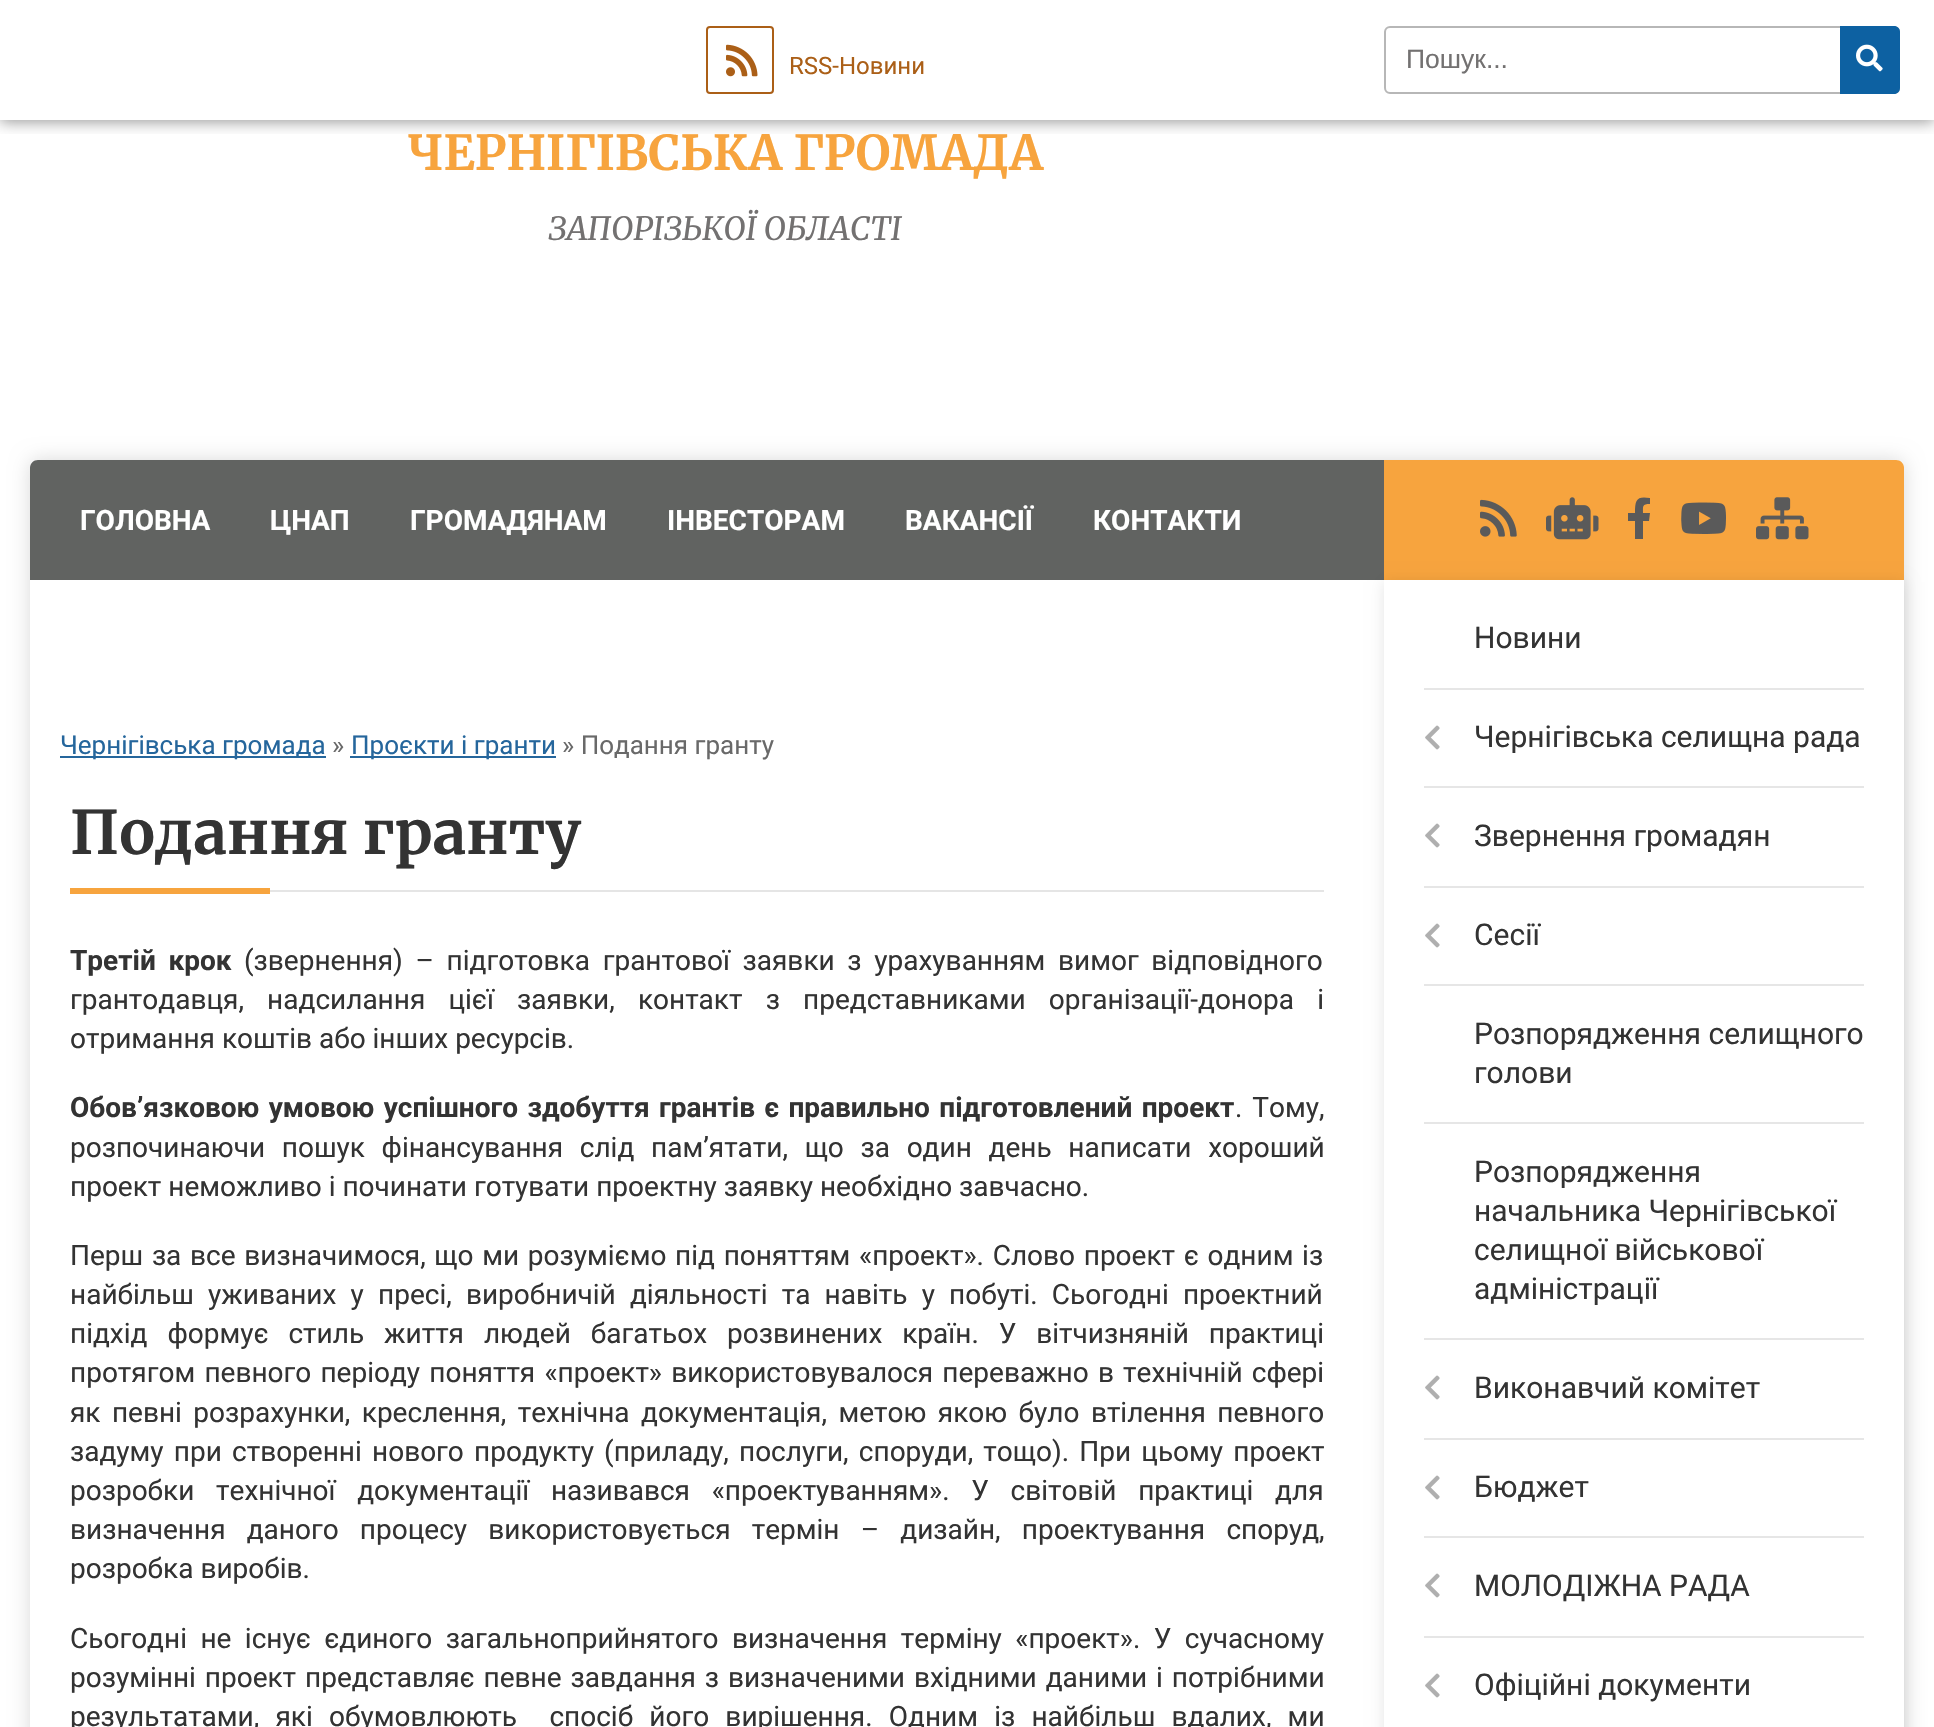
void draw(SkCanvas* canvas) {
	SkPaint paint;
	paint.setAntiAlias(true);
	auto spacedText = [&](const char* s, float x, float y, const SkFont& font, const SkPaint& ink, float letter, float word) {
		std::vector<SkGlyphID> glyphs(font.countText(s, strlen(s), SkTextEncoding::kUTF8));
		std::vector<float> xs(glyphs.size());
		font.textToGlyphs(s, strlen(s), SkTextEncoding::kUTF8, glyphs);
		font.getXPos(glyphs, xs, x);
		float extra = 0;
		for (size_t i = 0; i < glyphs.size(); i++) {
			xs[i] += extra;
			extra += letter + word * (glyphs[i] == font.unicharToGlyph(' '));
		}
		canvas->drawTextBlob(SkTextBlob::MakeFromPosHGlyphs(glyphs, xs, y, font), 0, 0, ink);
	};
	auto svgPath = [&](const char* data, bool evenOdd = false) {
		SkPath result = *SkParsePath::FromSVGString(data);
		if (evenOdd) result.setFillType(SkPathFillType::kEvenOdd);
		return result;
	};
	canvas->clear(0xffffffff);
	canvas->save();
	canvas->clipRect(SkRect::MakeXYWH(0, 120, 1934, 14));
	paint.setColor(0x66000000);
	paint.setMaskFilter(SkMaskFilter::MakeBlur(kNormal_SkBlurStyle, 7));
	canvas->drawRect(SkRect::MakeXYWH(0, 2, 1934, 120), paint);
	paint.setMaskFilter(nullptr);
	canvas->restore();
	paint.setStroke(true);
	paint.setStrokeWidth(2);
	paint.setColor(0xffab5f17);
	canvas->drawRoundRect(SkRect::MakeXYWH(707, 27, 66, 66), 3, 3, paint);
	canvas->drawImageRect(SkImages::DeferredFromEncodedData(SkData::MakeFromFileName("img1.png")), SkRect::MakeXYWH(726, 44, 32, 33), SkSamplingOptions());
	SkFont f1(fontMgr->matchFamilyStyle("Roboto", SkFontStyle::Normal()), 24);
	f1.setSubpixel(true);
	paint.setStroke(false);
	canvas->drawString("RSS-Новини", 789, 74, f1, paint);
	paint.setStroke(true);
	paint.setColor(0xffb7b7b7);
	canvas->drawRoundRect(SkRect::MakeXYWH(1385, 27, 514, 66), 5, 5, paint);
	SkFont f2(fontMgr->matchFamilyStyle("Liberation Sans", SkFontStyle::Normal()), 26.5);
	f2.setSubpixel(true);
	paint.setStroke(false);
	paint.setColor(0xff737171);
	canvas->drawString("Пошук...", 1406, 68, f2, paint);
	paint.setColor(0xff0d61a2);
	canvas->drawPath(svgPath("M1840 26H1894C1897.5 26 1900 28.5 1900 32V88C1900 91.5 1897.5 94 1894 94H1840Z"), paint);
	canvas->drawImageRect(SkImages::DeferredFromEncodedData(SkData::MakeFromFileName("img2.png")), SkRect::MakeXYWH(1856, 44, 27, 28), SkSamplingOptions());
	SkFont f3(fontMgr->matchFamilyStyle("Merriweather", SkFontStyle(300, SkFontStyle::kNormal_Width, SkFontStyle::kUpright_Slant)), 48);
	f3.setSubpixel(true);
	paint.setColor(0xfff7a43e);
	canvas->drawString("ЧЕРНІГІВСЬКА ГРОМАДА", 408, 170, f3, paint);
	SkFont f4(fontMgr->matchFamilyStyle("Merriweather", SkFontStyle(300, SkFontStyle::kNormal_Width, SkFontStyle::kItalic_Slant)), 32);
	f4.setSubpixel(true);
	paint.setColor(0xff737171);
	canvas->drawString("ЗАПОРІЗЬКОЇ ОБЛАСТІ", 548, 240, f4, paint);
	paint.setColor(0x26000000);
	paint.setMaskFilter(SkMaskFilter::MakeBlur(kNormal_SkBlurStyle, 10));
	canvas->drawRoundRect(SkRect::MakeXYWH(30, 460, 1874, 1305), 8, 8, paint);
	paint.setMaskFilter(nullptr);
	paint.setColor(0xffffffff);
	canvas->drawRoundRect(SkRect::MakeXYWH(30, 460, 1874, 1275), 8, 8, paint);
	paint.setColor(0xff616361);
	canvas->drawPath(svgPath("M38 460H1384V580H30V468C30 463.5 33.5 460 38 460Z"), paint);
	SkFont f5(fontMgr->matchFamilyStyle("Roboto", SkFontStyle::Bold()), 28);
	f5.setSubpixel(true);
	paint.setColor(0xffffffff);
	canvas->drawString("ГОЛОВНА", 80, 530, f5, paint);
	canvas->drawString("ЦНАП", 270, 530, f5, paint);
	canvas->drawString("ГРОМАДЯНАМ", 410, 530, f5, paint);
	canvas->drawString("ІНВЕСТОРАМ", 667, 530, f5, paint);
	canvas->drawString("ВАКАНСІЇ", 905, 530, f5, paint);
	canvas->drawString("КОНТАКТИ", 1093, 530, f5, paint);
	paint.setColor(0xff25669c);
	canvas->drawRect(SkRect::MakeXYWH(60, 756, 266, 2), paint);
	SkFont f6(fontMgr->matchFamilyStyle("Roboto", SkFontStyle::Normal()), 26);
	f6.setSubpixel(true);
	canvas->drawString("Чернігівська громада", 60, 754, f6, paint);
	paint.setColor(0xff696969);
	canvas->drawString("»", 332, 754, f6, paint);
	paint.setColor(0xff25669c);
	canvas->drawRect(SkRect::MakeXYWH(350, 756, 206, 2), paint);
	canvas->drawString("Проєкти і гранти", 351, 754, f6, paint);
	paint.setColor(0xff696969);
	canvas->drawString("» Подання гранту", 562, 754, f6, paint);
	paint.setColor(0xffe5e5e5);
	canvas->drawRect(SkRect::MakeXYWH(270, 890, 1054, 2), paint);
	SkFont f7(fontMgr->matchFamilyStyle("Merriweather", SkFontStyle(300, SkFontStyle::kNormal_Width, SkFontStyle::kUpright_Slant)), 60);
	f7.setSubpixel(true);
	paint.setColor(0xff333333);
	canvas->drawString("Подання гранту", 70, 854, f7, paint);
	paint.setColor(0xfff7a43e);
	canvas->drawRect(SkRect::MakeXYWH(70, 888, 200, 6), paint);
	paint.setColor(0xff333333);
	spacedText("Третій крок", 70, 970, f5, paint, 0, 5.75);
	SkFont f8(fontMgr->matchFamilyStyle("Roboto", SkFontStyle::Normal()), 28);
	f8.setSubpixel(true);
	spacedText("(звернення) – підготовка грантової заявки з урахуванням вимог відповідного", 244, 970, f8, paint, 0, 5.75);
	spacedText("грантодавця, надсилання цієї заявки, контакт з представниками організації-донора і", 70, 1009, f8, paint, 0, 16.25);
	canvas->drawString("отримання коштів або інших ресурсів.", 70, 1048, f8, paint);
	spacedText("Обов’язковою умовою успішного здобуття грантів є правильно підготовлений проект", 70, 1117, f5, paint, 0, 2.5);
	spacedText(". Тому,", 1235, 1117, f8, paint, 0, 3);
	spacedText("розпочинаючи пошук фінансування слід пам’ятати, що за один день написати хороший", 70, 1157, f8, paint, 0, 9.75);
	canvas->drawString("проект неможливо і починати готувати проектну заявку необхідно завчасно.", 70, 1196, f8, paint);
	spacedText("Перш за все визначимося, що ми розуміємо під поняттям «проект». Слово проект є одним із", 70, 1265, f8, paint, 0, 1.75);
	spacedText("найбільш уживаних у пресі, виробничій діяльності та навіть у побуті. Сьогодні проектний", 70, 1304, f8, paint, 0, 7.25);
	spacedText("підхід формує стиль життя людей багатьох розвинених країн. У вітчизняній практиці", 70, 1343, f8, paint, 0, 13);
	spacedText("протягом певного періоду поняття «проект» використовувалося переважно в технічній сфері", 70, 1382, f8, paint, 0, 2.25);
	spacedText("як певні розрахунки, креслення, технічна документація, метою якою було втілення певного", 70, 1422, f8, paint, 0, 4.5);
	spacedText("задуму при створенні нового продукту (приладу, послуги, споруди, тощо). При цьому проект", 70, 1461, f8, paint, 0, 3.25);
	spacedText("розробки технічної документації називався «проектуванням». У світовій практиці для", 70, 1500, f8, paint, 0, 14.75);
	spacedText("визначення даного процесу використовується термін – дизайн, проектування споруд,", 70, 1539, f8, paint, 0, 14.25);
	canvas->drawString("розробка виробів.", 70, 1578, f8, paint);
	spacedText("Сьогодні не існує єдиного загальноприйнятого визначення терміну «проект». У сучасному", 70, 1648, f8, paint, 0, 6.5);
	spacedText("розумінні проект представляє певне завдання з визначеними вхідними даними і потрібними", 70, 1687, f8, paint, 0, 2);
	spacedText("результатами, які обумовлюють  спосіб його вирішення. Одним із найбільш вдалих, ми", 70, 1726, f8, paint, 0, 9.25);
	paint.setColor(0xfff7a43e);
	canvas->drawPath(svgPath("M1384 460H1896C1900.5 460 1904 463.5 1904 468V580H1384Z"), paint);
	canvas->drawImageRect(SkImages::DeferredFromEncodedData(SkData::MakeFromFileName("img3.png")), SkRect::MakeXYWH(1480, 499, 37, 38), SkSamplingOptions());
	canvas->drawImageRect(SkImages::DeferredFromEncodedData(SkData::MakeFromFileName("img4.png")), SkRect::MakeXYWH(1546, 497, 53, 43), SkSamplingOptions());
	paint.setColor(0xff5a5a5a);
	canvas->drawPath(svgPath("M1649 521H1643V539H1635V521H1628V513H1635C1635 499 1637 496 1650 498V504C1642 504 1643 506 1643 513H1650Z"), paint);
	canvas->drawImageRect(SkImages::DeferredFromEncodedData(SkData::MakeFromFileName("img5.png")), SkRect::MakeXYWH(1681, 502, 45, 32), SkSamplingOptions());
	canvas->drawImageRect(SkImages::DeferredFromEncodedData(SkData::MakeFromFileName("img6.png")), SkRect::MakeXYWH(1756, 497, 53, 43), SkSamplingOptions());
	canvas->save();
	canvas->clipPath(svgPath("M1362 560H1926V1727H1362ZM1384 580H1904V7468H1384Z", true), true);
	paint.setColor(0x1a000000);
	paint.setMaskFilter(SkMaskFilter::MakeBlur(kNormal_SkBlurStyle, 7));
	canvas->drawRect(SkRect::MakeXYWH(1384, 582, 520, 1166), paint);
	paint.setMaskFilter(nullptr);
	canvas->restore();
	SkFont f9(fontMgr->matchFamilyStyle("Roboto", SkFontStyle::Normal()), 30);
	f9.setSubpixel(true);
	paint.setColor(0xff333333);
	canvas->drawString("Новини", 1474, 648, f9, paint);
	paint.setColor(0xffe6e6e6);
	canvas->drawRect(SkRect::MakeXYWH(1424, 688, 440, 2), paint);
	canvas->drawImageRect(SkImages::DeferredFromEncodedData(SkData::MakeFromFileName("img7.png")), SkRect::MakeXYWH(1425, 725, 15, 25), SkSamplingOptions());
	paint.setColor(0xff333333);
	canvas->drawString("Чернігівська селищна рада", 1474, 747, f9, paint);
	paint.setColor(0xffe6e6e6);
	canvas->drawRect(SkRect::MakeXYWH(1424, 786, 440, 2), paint);
	canvas->drawImageRect(SkImages::DeferredFromEncodedData(SkData::MakeFromFileName("img7.png")), SkRect::MakeXYWH(1425, 823, 15, 25), SkSamplingOptions());
	paint.setColor(0xff333333);
	canvas->drawString("Звернення громадян", 1474, 846, f9, paint);
	paint.setColor(0xffe6e6e6);
	canvas->drawRect(SkRect::MakeXYWH(1424, 886, 440, 2), paint);
	canvas->drawImageRect(SkImages::DeferredFromEncodedData(SkData::MakeFromFileName("img7.png")), SkRect::MakeXYWH(1425, 923, 15, 25), SkSamplingOptions());
	paint.setColor(0xff333333);
	canvas->drawString("Сесії", 1474, 945, f9, paint);
	paint.setColor(0xffe6e6e6);
	canvas->drawRect(SkRect::MakeXYWH(1424, 984, 440, 2), paint);
	paint.setColor(0xff333333);
	canvas->drawString("Розпорядження селищного", 1474, 1044, f9, paint);
	canvas->drawString("голови", 1474, 1083, f9, paint);
	paint.setColor(0xffe6e6e6);
	canvas->drawRect(SkRect::MakeXYWH(1424, 1122, 440, 2), paint);
	paint.setColor(0xff333333);
	canvas->drawString("Розпорядження", 1474, 1182, f9, paint);
	canvas->drawString("начальника Чернігівської", 1474, 1221, f9, paint);
	canvas->drawString("селищної військової", 1474, 1260, f9, paint);
	canvas->drawString("адміністрації", 1474, 1299, f9, paint);
	paint.setColor(0xffe6e6e6);
	canvas->drawRect(SkRect::MakeXYWH(1424, 1338, 440, 2), paint);
	canvas->drawImageRect(SkImages::DeferredFromEncodedData(SkData::MakeFromFileName("img7.png")), SkRect::MakeXYWH(1425, 1375, 15, 25), SkSamplingOptions());
	paint.setColor(0xff333333);
	canvas->drawString("Виконавчий комітет", 1474, 1398, f9, paint);
	paint.setColor(0xffe6e6e6);
	canvas->drawRect(SkRect::MakeXYWH(1424, 1438, 440, 2), paint);
	canvas->drawImageRect(SkImages::DeferredFromEncodedData(SkData::MakeFromFileName("img7.png")), SkRect::MakeXYWH(1425, 1475, 15, 25), SkSamplingOptions());
	paint.setColor(0xff333333);
	canvas->drawString("Бюджет", 1474, 1497, f9, paint);
	paint.setColor(0xffe6e6e6);
	canvas->drawRect(SkRect::MakeXYWH(1424, 1536, 440, 2), paint);
	canvas->drawImageRect(SkImages::DeferredFromEncodedData(SkData::MakeFromFileName("img7.png")), SkRect::MakeXYWH(1425, 1573, 15, 25), SkSamplingOptions());
	paint.setColor(0xff333333);
	canvas->drawString("МОЛОДІЖНА РАДА", 1474, 1596, f9, paint);
	paint.setColor(0xffe6e6e6);
	canvas->drawRect(SkRect::MakeXYWH(1424, 1636, 440, 2), paint);
	canvas->drawImageRect(SkImages::DeferredFromEncodedData(SkData::MakeFromFileName("img7.png")), SkRect::MakeXYWH(1425, 1673, 15, 25), SkSamplingOptions());
	paint.setColor(0xff333333);
	canvas->drawString("Офіційні документи", 1474, 1695, f9, paint);
}
